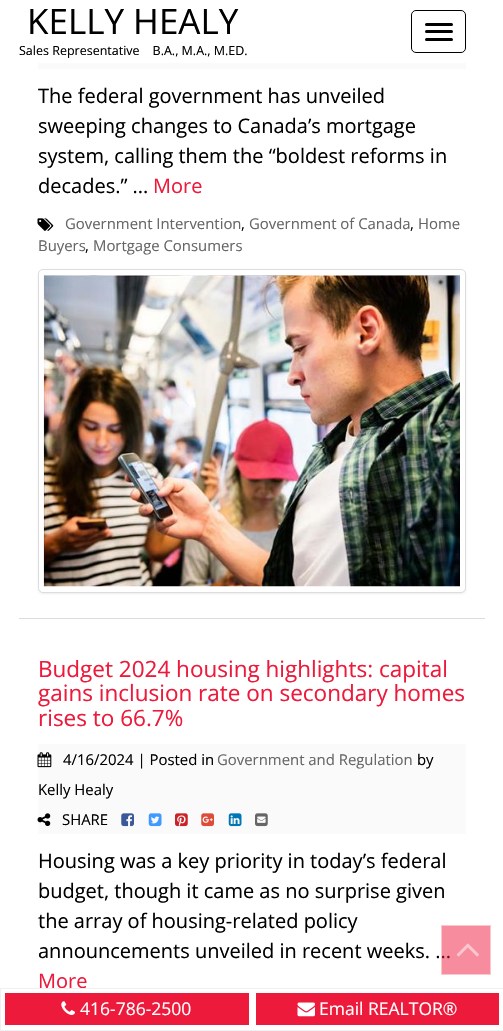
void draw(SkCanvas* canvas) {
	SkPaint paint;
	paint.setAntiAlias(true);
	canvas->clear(0xffffffff);
	SkFont f1(fontMgr->matchFamilyStyle("Open Sans", SkFontStyle::Normal()), 35);
	f1.setSubpixel(true);
	paint.setColor(0xff000000);
	canvas->drawString("KELLY HEALY", 27, 34, f1, paint);
	SkFont f2(fontMgr->matchFamilyStyle("Open Sans", SkFontStyle::Normal()), 12.5);
	f2.setSubpixel(true);
	canvas->drawString("Sales Representative    B.A., M.A., M.ED.", 19, 55, f2, paint);
	paint.setStroke(true);
	paint.setStrokeWidth(1);
	canvas->drawRoundRect(SkRect::MakeXYWH(411.5, 10.5, 54, 42), 4.5, 4.5, paint);
	paint.setStroke(false);
	canvas->drawRoundRect(SkRect::MakeXYWH(425, 23, 28, 3), 1.5, 1.5, paint);
	canvas->drawRoundRect(SkRect::MakeXYWH(425, 30, 28, 3), 1.5, 1.5, paint);
	canvas->drawRoundRect(SkRect::MakeXYWH(425, 38, 28, 3), 1.5, 1.5, paint);
	paint.setColor(0xffdddddd);
	canvas->drawRect(SkRect::MakeXYWH(19, 618, 466, 1), paint);
	paint.setColor(0xfffafafa);
	canvas->drawRect(SkRect::MakeXYWH(38, 63, 428, 6), paint);
	SkFont f3(fontMgr->matchFamilyStyle("Open Sans", SkFontStyle::Normal()), 20);
	f3.setSubpixel(true);
	paint.setColor(0xff000000);
	canvas->drawString("The federal government has unveiled", 38, 103, f3, paint);
	canvas->drawString("sweeping changes to Canada’s mortgage", 38, 133, f3, paint);
	canvas->drawString("system, calling them the “boldest reforms in", 38, 163, f3, paint);
	canvas->drawString("decades.” ...", 38, 193, f3, paint);
	paint.setColor(0xffed1a3b);
	canvas->drawString("More", 153, 193, f3, paint);
	canvas->drawImageRect(SkImages::DeferredFromEncodedData(SkData::MakeFromFileName("img1.png")), SkRect::MakeXYWH(37, 218, 17, 13), SkSamplingOptions());
	SkFont f4(fontMgr->matchFamilyStyle("Open Sans", SkFontStyle::Normal()), 14.9);
	f4.setSubpixel(true);
	paint.setColor(0xff666666);
	canvas->drawString("Government Intervention", 65, 229, f4, paint);
	paint.setColor(0xff000000);
	canvas->drawString(",", 241, 229, f4, paint);
	paint.setColor(0xff666666);
	canvas->drawString("Government of Canada", 249, 229, f4, paint);
	paint.setColor(0xff000000);
	canvas->drawString(",", 410, 229, f4, paint);
	paint.setColor(0xff666666);
	canvas->drawString("Home", 418, 229, f4, paint);
	canvas->drawString("Buyers", 38, 251, f4, paint);
	paint.setColor(0xff000000);
	canvas->drawString(",", 85, 251, f4, paint);
	paint.setColor(0xff666666);
	canvas->drawString("Mortgage Consumers", 93, 251, f4, paint);
	paint.setColor(0x12000000);
	paint.setMaskFilter(SkMaskFilter::MakeBlur(kNormal_SkBlurStyle, 1));
	canvas->drawRoundRect(SkRect::MakeXYWH(38, 270, 428, 324), 5, 5, paint);
	paint.setMaskFilter(nullptr);
	paint.setColor(0xffffffff);
	canvas->drawRoundRect(SkRect::MakeXYWH(38.5, 269.5, 427, 323), 4.5, 4.5, paint);
	paint.setStroke(true);
	paint.setColor(0xffdddddd);
	canvas->drawRoundRect(SkRect::MakeXYWH(38.5, 269.5, 427, 323), 4.5, 4.5, paint);
	canvas->drawImageRect(SkImages::DeferredFromEncodedData(SkData::MakeFromFileName("img2.png")), SkRect::MakeXYWH(43, 275, 417, 312), SkSamplingOptions());
	SkFont f5(fontMgr->matchFamilyStyle("Open Sans", SkFontStyle::Normal()), 22.5);
	f5.setSubpixel(true);
	paint.setStroke(false);
	paint.setColor(0xffed1a3b);
	canvas->drawString("Budget 2024 housing highlights: capital", 38, 677, f5, paint);
	canvas->drawString("gains inclusion rate on secondary homes", 38, 701, f5, paint);
	canvas->drawString("rises to 66.7%", 38, 726, f5, paint);
	paint.setColor(0xfffafafa);
	canvas->drawRect(SkRect::MakeXYWH(38, 744, 428, 90), paint);
	canvas->drawImageRect(SkImages::DeferredFromEncodedData(SkData::MakeFromFileName("img3.png")), SkRect::MakeXYWH(37, 752, 15, 16), SkSamplingOptions());
	paint.setColor(0xff000000);
	canvas->drawString("4/16/2024 | Posted in", 63, 765, f4, paint);
	paint.setColor(0xff666666);
	canvas->drawString("Government and Regulation", 217, 765, f4, paint);
	paint.setColor(0xff000000);
	canvas->drawString("by", 417, 765, f4, paint);
	canvas->drawString("Kelly Healy", 38, 795, f4, paint);
	canvas->drawImageRect(SkImages::DeferredFromEncodedData(SkData::MakeFromFileName("img4.png")), SkRect::MakeXYWH(37, 813, 14, 13), SkSamplingOptions());
	canvas->drawString("SHARE", 62, 825, f4, paint);
	canvas->drawImageRect(SkImages::DeferredFromEncodedData(SkData::MakeFromFileName("img5.png")), SkRect::MakeXYWH(121, 813, 13, 14), SkSamplingOptions());
	canvas->drawImageRect(SkImages::DeferredFromEncodedData(SkData::MakeFromFileName("img6.png")), SkRect::MakeXYWH(148, 813, 14, 14), SkSamplingOptions());
	canvas->drawImageRect(SkImages::DeferredFromEncodedData(SkData::MakeFromFileName("img7.png")), SkRect::MakeXYWH(175, 813, 13, 14), SkSamplingOptions());
	canvas->drawImageRect(SkImages::DeferredFromEncodedData(SkData::MakeFromFileName("img8.png")), SkRect::MakeXYWH(201, 813, 13, 14), SkSamplingOptions());
	canvas->drawImageRect(SkImages::DeferredFromEncodedData(SkData::MakeFromFileName("img9.png")), SkRect::MakeXYWH(228, 813, 14, 14), SkSamplingOptions());
	canvas->drawImageRect(SkImages::DeferredFromEncodedData(SkData::MakeFromFileName("img10.png")), SkRect::MakeXYWH(255, 813, 13, 14), SkSamplingOptions());
	canvas->drawString("Housing was a key priority in today’s federal", 38, 868, f3, paint);
	canvas->drawString("budget, though it came as no surprise given", 38, 898, f3, paint);
	canvas->drawString("the array of housing-related policy", 38, 928, f3, paint);
	canvas->drawString("announcements unveiled in recent weeks. ...", 38, 958, f3, paint);
	paint.setColor(0xffed1a3b);
	canvas->drawString("More", 38, 988, f3, paint);
	paint.setColor(0x80ed1a3b);
	canvas->drawRect(SkRect::MakeXYWH(441, 925, 50, 50), paint);
	paint.setStroke(true);
	paint.setColor(0x80ffffff);
	canvas->drawRect(SkRect::MakeXYWH(441.5, 925.5, 49, 49), paint);
	canvas->drawImageRect(SkImages::DeferredFromEncodedData(SkData::MakeFromFileName("img11.png")), SkRect::MakeXYWH(456, 943, 23, 14), SkSamplingOptions());
	paint.setColor(0xfff0f0f0);
	canvas->drawRect(SkRect::MakeXYWH(0.5, 988.5, 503, 42), paint);
	paint.setStroke(false);
	paint.setColor(0xffed1a3b);
	canvas->drawRect(SkRect::MakeXYWH(5, 993, 244, 32), paint);
	canvas->drawImageRect(SkImages::DeferredFromEncodedData(SkData::MakeFromFileName("img12.png")), SkRect::MakeXYWH(61, 1001, 14, 14), SkSamplingOptions());
	SkFont f6(fontMgr->matchFamilyStyle("Open Sans", SkFontStyle::Normal()), 17.5);
	f6.setSubpixel(true);
	paint.setColor(0xffffffff);
	canvas->drawString("416-786-2500", 80, 1015, f6, paint);
	paint.setColor(0xffed1a3b);
	canvas->drawRect(SkRect::MakeXYWH(256, 993, 243, 32), paint);
	canvas->drawImageRect(SkImages::DeferredFromEncodedData(SkData::MakeFromFileName("img13.png")), SkRect::MakeXYWH(297, 1002, 18, 15), SkSamplingOptions());
	paint.setColor(0xffffffff);
	canvas->drawString("Email REALTOR®", 319, 1015, f6, paint);
}
